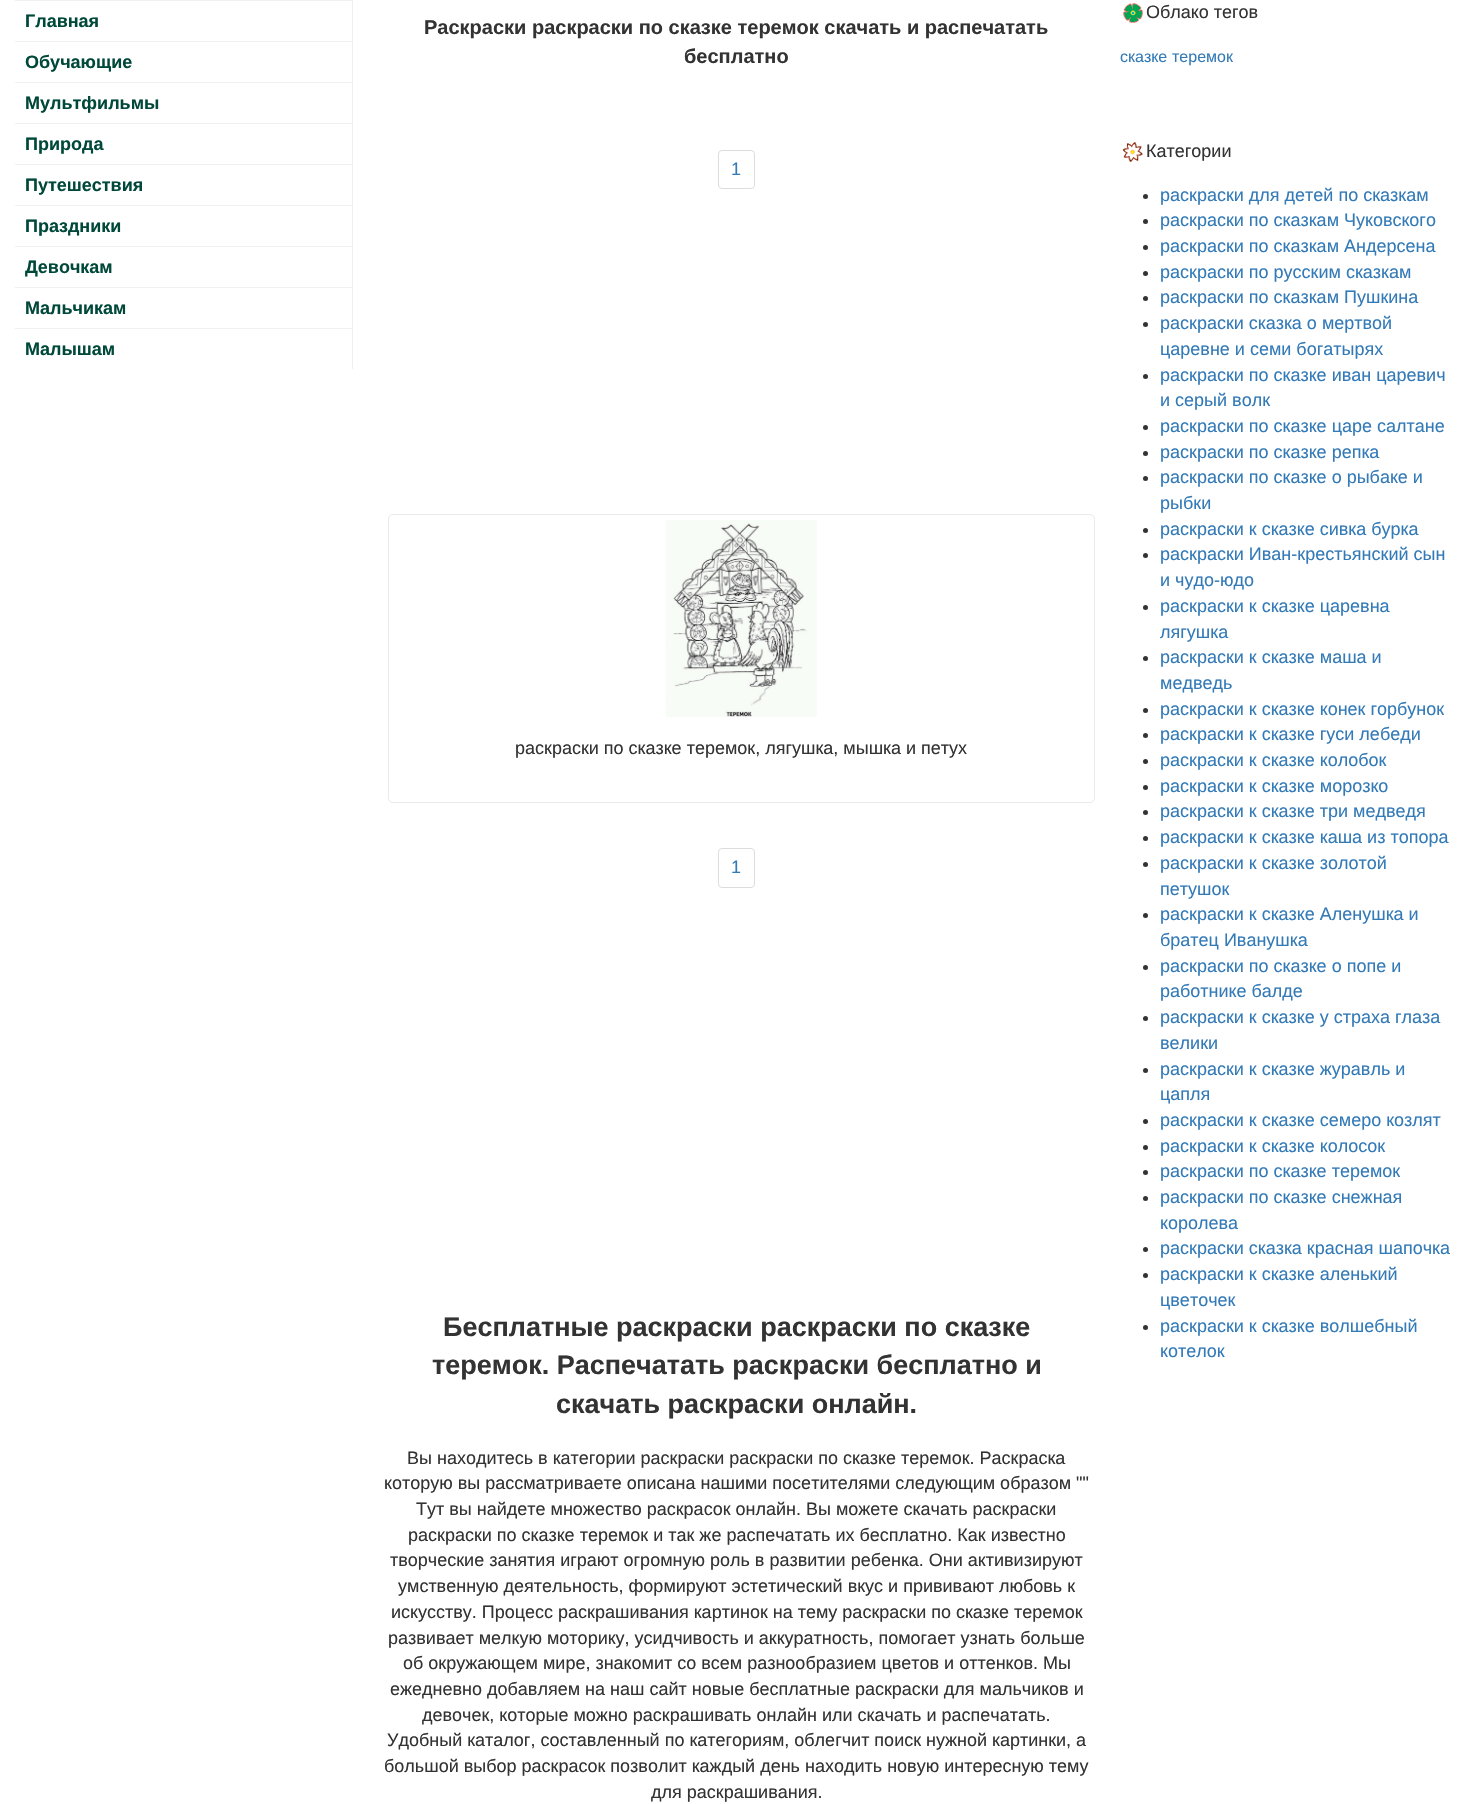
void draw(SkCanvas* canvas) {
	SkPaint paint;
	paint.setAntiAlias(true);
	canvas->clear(0xffffffff);
	paint.setColor(0xfff0f0f0);
	canvas->drawRect(SkRect::MakeXYWH(15, 0, 338, 1), paint);
	canvas->drawRect(SkRect::MakeXYWH(352, 0, 1, 41), paint);
	SkFont f1(fontMgr->matchFamilyStyle("Liberation Sans", SkFontStyle::Bold()), 18);
	f1.setSubpixel(true);
	paint.setColor(0xff00483a);
	canvas->drawString("Главная", 25, 27, f1, paint);
	paint.setColor(0xfff0f0f0);
	canvas->drawRect(SkRect::MakeXYWH(15, 41, 338, 1), paint);
	canvas->drawRect(SkRect::MakeXYWH(352, 41, 1, 41), paint);
	paint.setColor(0xff00483a);
	canvas->drawString("Обучающие", 25, 68, f1, paint);
	paint.setColor(0xfff0f0f0);
	canvas->drawRect(SkRect::MakeXYWH(15, 82, 338, 1), paint);
	canvas->drawRect(SkRect::MakeXYWH(352, 82, 1, 41), paint);
	paint.setColor(0xff00483a);
	canvas->drawString("Мультфильмы", 25, 109, f1, paint);
	paint.setColor(0xfff0f0f0);
	canvas->drawRect(SkRect::MakeXYWH(15, 123, 338, 1), paint);
	canvas->drawRect(SkRect::MakeXYWH(352, 123, 1, 41), paint);
	paint.setColor(0xff00483a);
	canvas->drawString("Природа", 25, 150, f1, paint);
	paint.setColor(0xfff0f0f0);
	canvas->drawRect(SkRect::MakeXYWH(15, 164, 338, 1), paint);
	canvas->drawRect(SkRect::MakeXYWH(352, 164, 1, 41), paint);
	paint.setColor(0xff00483a);
	canvas->drawString("Путешествия", 25, 191, f1, paint);
	paint.setColor(0xfff0f0f0);
	canvas->drawRect(SkRect::MakeXYWH(15, 205, 338, 1), paint);
	canvas->drawRect(SkRect::MakeXYWH(352, 205, 1, 41), paint);
	paint.setColor(0xff00483a);
	canvas->drawString("Праздники", 25, 232, f1, paint);
	paint.setColor(0xfff0f0f0);
	canvas->drawRect(SkRect::MakeXYWH(15, 246, 338, 1), paint);
	canvas->drawRect(SkRect::MakeXYWH(352, 246, 1, 41), paint);
	paint.setColor(0xff00483a);
	canvas->drawString("Девочкам", 25, 273, f1, paint);
	paint.setColor(0xfff0f0f0);
	canvas->drawRect(SkRect::MakeXYWH(15, 287, 338, 1), paint);
	canvas->drawRect(SkRect::MakeXYWH(352, 287, 1, 41), paint);
	paint.setColor(0xff00483a);
	canvas->drawString("Мальчикам", 25, 314, f1, paint);
	paint.setColor(0xfff0f0f0);
	canvas->drawRect(SkRect::MakeXYWH(15, 328, 338, 1), paint);
	canvas->drawRect(SkRect::MakeXYWH(352, 328, 1, 41), paint);
	paint.setColor(0xff00483a);
	canvas->drawString("Малышам", 25, 355, f1, paint);
	SkFont f2(fontMgr->matchFamilyStyle("Liberation Sans", SkFontStyle::Bold()), 20);
	f2.setSubpixel(true);
	paint.setColor(0xff333333);
	canvas->drawString("Раскраски раскраски по сказке теремок скачать и распечатать", 424, 34, f2, paint);
	canvas->drawString("бесплатно", 684, 63, f2, paint);
	paint.setStroke(true);
	paint.setStrokeWidth(1);
	paint.setColor(0xffdddddd);
	canvas->drawRoundRect(SkRect::MakeXYWH(718.5, 150.5, 36, 38), 3.5, 3.5, paint);
	SkFont f3(fontMgr->matchFamilyStyle("Liberation Sans", SkFontStyle::Normal()), 18);
	f3.setSubpixel(true);
	paint.setStroke(false);
	paint.setColor(0xff337ab7);
	canvas->drawString("1", 731, 175, f3, paint);
	paint.setStroke(true);
	paint.setColor(0xffeaeaea);
	canvas->drawRoundRect(SkRect::MakeXYWH(388.5, 514.5, 706, 288), 4.5, 4.5, paint);
	canvas->drawImageRect(SkImages::DeferredFromEncodedData(SkData::MakeFromFileName("img1.png")), SkRect::MakeXYWH(666, 520, 151, 197), SkSamplingOptions());
	paint.setStroke(false);
	paint.setColor(0xff333333);
	canvas->drawString("раскраски по сказке теремок, лягушка, мышка и петух", 515, 754, f3, paint);
	paint.setStroke(true);
	paint.setColor(0xffdddddd);
	canvas->drawRoundRect(SkRect::MakeXYWH(718.5, 848.5, 36, 39), 3.5, 3.5, paint);
	paint.setStroke(false);
	paint.setColor(0xff337ab7);
	canvas->drawString("1", 731, 873, f3, paint);
	SkFont f4(fontMgr->matchFamilyStyle("Liberation Sans", SkFontStyle::Bold()), 27);
	f4.setSubpixel(true);
	paint.setColor(0xff333333);
	canvas->drawString("Бесплатные раскраски раскраски по сказке", 443, 1336, f4, paint);
	canvas->drawString("теремок. Распечатать раскраски бесплатно и", 432, 1374, f4, paint);
	canvas->drawString("скачать раскраски онлайн.", 556, 1413, f4, paint);
	canvas->drawString("Вы находитесь в категории раскраски раскраски по сказке теремок. Раскраска", 407, 1464, f3, paint);
	canvas->drawString("которую вы рассматриваете описана нашими посетителями следующим образом \"\"", 384, 1489, f3, paint);
	canvas->drawString("Тут вы найдете множество раскрасок онлайн. Вы можете скачать раскраски", 416, 1515, f3, paint);
	canvas->drawString("раскраски по сказке теремок и так же распечатать их бесплатно. Как известно", 408, 1541, f3, paint);
	canvas->drawString("творческие занятия играют огромную роль в развитии ребенка. Они активизируют", 390, 1566, f3, paint);
	canvas->drawString("умственную деятельность, формируют эстетический вкус и прививают любовь к", 398, 1592, f3, paint);
	canvas->drawString("искусству. Процесс раскрашивания картинок на тему раскраски по сказке теремок", 391, 1618, f3, paint);
	canvas->drawString("развивает мелкую моторику, усидчивость и аккуратность, помогает узнать больше", 388, 1644, f3, paint);
	canvas->drawString("об окружающем мире, знакомит со всем разнообразием цветов и оттенков. Мы", 403, 1669, f3, paint);
	canvas->drawString("ежедневно добавляем на наш сайт новые бесплатные раскраски для мальчиков и", 390, 1695, f3, paint);
	canvas->drawString("девочек, которые можно раскрашивать онлайн или скачать и распечатать.", 422, 1721, f3, paint);
	canvas->drawString("Удобный каталог, составленный по категориям, облегчит поиск нужной картинки, а", 387, 1746, f3, paint);
	canvas->drawString("большой выбор раскрасок позволит каждый день находить новую интересную тему", 384, 1772, f3, paint);
	canvas->drawString("для раскрашивания.", 651, 1798, f3, paint);
	canvas->drawImageRect(SkImages::DeferredFromEncodedData(SkData::MakeFromFileName("img2.png")), SkRect::MakeXYWH(1123, 3, 20, 20), SkSamplingOptions());
	canvas->drawString("Облако тегов", 1146, 18, f3, paint);
	SkFont f5(fontMgr->matchFamilyStyle("Liberation Sans", SkFontStyle::Normal()), 16);
	f5.setSubpixel(true);
	paint.setColor(0xff337ab7);
	canvas->drawString("сказке", 1120, 62, f5, paint);
	canvas->drawString("теремок", 1172, 62, f5, paint);
	canvas->drawImageRect(SkImages::DeferredFromEncodedData(SkData::MakeFromFileName("img3.png")), SkRect::MakeXYWH(1123, 142, 20, 20), SkSamplingOptions());
	paint.setColor(0xff333333);
	canvas->drawString("Категории", 1146, 157, f3, paint);
	canvas->drawCircle(1145.5, 196.5, 2.5, paint);
	paint.setColor(0xff337ab7);
	canvas->drawString("раскраски для детей по сказкам", 1160, 201, f3, paint);
	paint.setColor(0xff333333);
	canvas->drawCircle(1145.5, 221.5, 2.5, paint);
	paint.setColor(0xff337ab7);
	canvas->drawString("раскраски по сказкам Чуковского", 1160, 226, f3, paint);
	paint.setColor(0xff333333);
	canvas->drawCircle(1145.5, 247.5, 2.5, paint);
	paint.setColor(0xff337ab7);
	canvas->drawString("раскраски по сказкам Андерсена", 1160, 252, f3, paint);
	paint.setColor(0xff333333);
	canvas->drawCircle(1145.5, 273.5, 2.5, paint);
	paint.setColor(0xff337ab7);
	canvas->drawString("раскраски по русским сказкам", 1160, 278, f3, paint);
	paint.setColor(0xff333333);
	canvas->drawCircle(1145.5, 298.5, 2.5, paint);
	paint.setColor(0xff337ab7);
	canvas->drawString("раскраски по сказкам Пушкина", 1160, 303, f3, paint);
	paint.setColor(0xff333333);
	canvas->drawCircle(1145.5, 324.5, 2.5, paint);
	paint.setColor(0xff337ab7);
	canvas->drawString("раскраски сказка о мертвой", 1160, 329, f3, paint);
	canvas->drawString("царевне и семи богатырях", 1160, 355, f3, paint);
	paint.setColor(0xff333333);
	canvas->drawCircle(1145.5, 376.5, 2.5, paint);
	paint.setColor(0xff337ab7);
	canvas->drawString("раскраски по сказке иван царевич", 1160, 381, f3, paint);
	canvas->drawString("и серый волк", 1160, 406, f3, paint);
	paint.setColor(0xff333333);
	canvas->drawCircle(1145.5, 427.5, 2.5, paint);
	paint.setColor(0xff337ab7);
	canvas->drawString("раскраски по сказке царе салтане", 1160, 432, f3, paint);
	paint.setColor(0xff333333);
	canvas->drawCircle(1145.5, 453.5, 2.5, paint);
	paint.setColor(0xff337ab7);
	canvas->drawString("раскраски по сказке репка", 1160, 458, f3, paint);
	paint.setColor(0xff333333);
	canvas->drawCircle(1145.5, 478.5, 2.5, paint);
	paint.setColor(0xff337ab7);
	canvas->drawString("раскраски по сказке о рыбаке и", 1160, 483, f3, paint);
	canvas->drawString("рыбки", 1160, 509, f3, paint);
	paint.setColor(0xff333333);
	canvas->drawCircle(1145.5, 530.5, 2.5, paint);
	paint.setColor(0xff337ab7);
	canvas->drawString("раскраски к сказке сивка бурка", 1160, 535, f3, paint);
	paint.setColor(0xff333333);
	canvas->drawCircle(1145.5, 555.5, 2.5, paint);
	paint.setColor(0xff337ab7);
	canvas->drawString("раскраски Иван-крестьянский сын", 1160, 560, f3, paint);
	canvas->drawString("и чудо-юдо", 1160, 586, f3, paint);
	paint.setColor(0xff333333);
	canvas->drawCircle(1145.5, 607.5, 2.5, paint);
	paint.setColor(0xff337ab7);
	canvas->drawString("раскраски к сказке царевна", 1160, 612, f3, paint);
	canvas->drawString("лягушка", 1160, 638, f3, paint);
	paint.setColor(0xff333333);
	canvas->drawCircle(1145.5, 658.5, 2.5, paint);
	paint.setColor(0xff337ab7);
	canvas->drawString("раскраски к сказке маша и", 1160, 663, f3, paint);
	canvas->drawString("медведь", 1160, 689, f3, paint);
	paint.setColor(0xff333333);
	canvas->drawCircle(1145.5, 710.5, 2.5, paint);
	paint.setColor(0xff337ab7);
	canvas->drawString("раскраски к сказке конек горбунок", 1160, 715, f3, paint);
	paint.setColor(0xff333333);
	canvas->drawCircle(1145.5, 735.5, 2.5, paint);
	paint.setColor(0xff337ab7);
	canvas->drawString("раскраски к сказке гуси лебеди", 1160, 740, f3, paint);
	paint.setColor(0xff333333);
	canvas->drawCircle(1145.5, 761.5, 2.5, paint);
	paint.setColor(0xff337ab7);
	canvas->drawString("раскраски к сказке колобок", 1160, 766, f3, paint);
	paint.setColor(0xff333333);
	canvas->drawCircle(1145.5, 787.5, 2.5, paint);
	paint.setColor(0xff337ab7);
	canvas->drawString("раскраски к сказке морозко", 1160, 792, f3, paint);
	paint.setColor(0xff333333);
	canvas->drawCircle(1145.5, 812.5, 2.5, paint);
	paint.setColor(0xff337ab7);
	canvas->drawString("раскраски к сказке три медведя", 1160, 817, f3, paint);
	paint.setColor(0xff333333);
	canvas->drawCircle(1145.5, 838.5, 2.5, paint);
	paint.setColor(0xff337ab7);
	canvas->drawString("раскраски к сказке каша из топора", 1160, 843, f3, paint);
	paint.setColor(0xff333333);
	canvas->drawCircle(1145.5, 864.5, 2.5, paint);
	paint.setColor(0xff337ab7);
	canvas->drawString("раскраски к сказке золотой", 1160, 869, f3, paint);
	canvas->drawString("петушок", 1160, 895, f3, paint);
	paint.setColor(0xff333333);
	canvas->drawCircle(1145.5, 915.5, 2.5, paint);
	paint.setColor(0xff337ab7);
	canvas->drawString("раскраски к сказке Аленушка и", 1160, 920, f3, paint);
	canvas->drawString("братец Иванушка", 1160, 946, f3, paint);
	paint.setColor(0xff333333);
	canvas->drawCircle(1145.5, 967.5, 2.5, paint);
	paint.setColor(0xff337ab7);
	canvas->drawString("раскраски по сказке о попе и", 1160, 972, f3, paint);
	canvas->drawString("работнике балде", 1160, 997, f3, paint);
	paint.setColor(0xff333333);
	canvas->drawCircle(1145.5, 1018.5, 2.5, paint);
	paint.setColor(0xff337ab7);
	canvas->drawString("раскраски к сказке у страха глаза", 1160, 1023, f3, paint);
	canvas->drawString("велики", 1160, 1049, f3, paint);
	paint.setColor(0xff333333);
	canvas->drawCircle(1145.5, 1070.5, 2.5, paint);
	paint.setColor(0xff337ab7);
	canvas->drawString("раскраски к сказке журавль и", 1160, 1075, f3, paint);
	canvas->drawString("цапля", 1160, 1100, f3, paint);
	paint.setColor(0xff333333);
	canvas->drawCircle(1145.5, 1121.5, 2.5, paint);
	paint.setColor(0xff337ab7);
	canvas->drawString("раскраски к сказке семеро козлят", 1160, 1126, f3, paint);
	paint.setColor(0xff333333);
	canvas->drawCircle(1145.5, 1147.5, 2.5, paint);
	paint.setColor(0xff337ab7);
	canvas->drawString("раскраски к сказке колосок", 1160, 1152, f3, paint);
	paint.setColor(0xff333333);
	canvas->drawCircle(1145.5, 1172.5, 2.5, paint);
	paint.setColor(0xff337ab7);
	canvas->drawString("раскраски по сказке теремок", 1160, 1177, f3, paint);
	paint.setColor(0xff333333);
	canvas->drawCircle(1145.5, 1198.5, 2.5, paint);
	paint.setColor(0xff337ab7);
	canvas->drawString("раскраски по сказке снежная", 1160, 1203, f3, paint);
	canvas->drawString("королева", 1160, 1229, f3, paint);
	paint.setColor(0xff333333);
	canvas->drawCircle(1145.5, 1249.5, 2.5, paint);
	paint.setColor(0xff337ab7);
	canvas->drawString("раскраски сказка красная шапочка", 1160, 1254, f3, paint);
	paint.setColor(0xff333333);
	canvas->drawCircle(1145.5, 1275.5, 2.5, paint);
	paint.setColor(0xff337ab7);
	canvas->drawString("раскраски к сказке аленький", 1160, 1280, f3, paint);
	canvas->drawString("цветочек", 1160, 1306, f3, paint);
	paint.setColor(0xff333333);
	canvas->drawCircle(1145.5, 1327.5, 2.5, paint);
	paint.setColor(0xff337ab7);
	canvas->drawString("раскраски к сказке волшебный", 1160, 1332, f3, paint);
	canvas->drawString("котелок", 1160, 1357, f3, paint);
}
